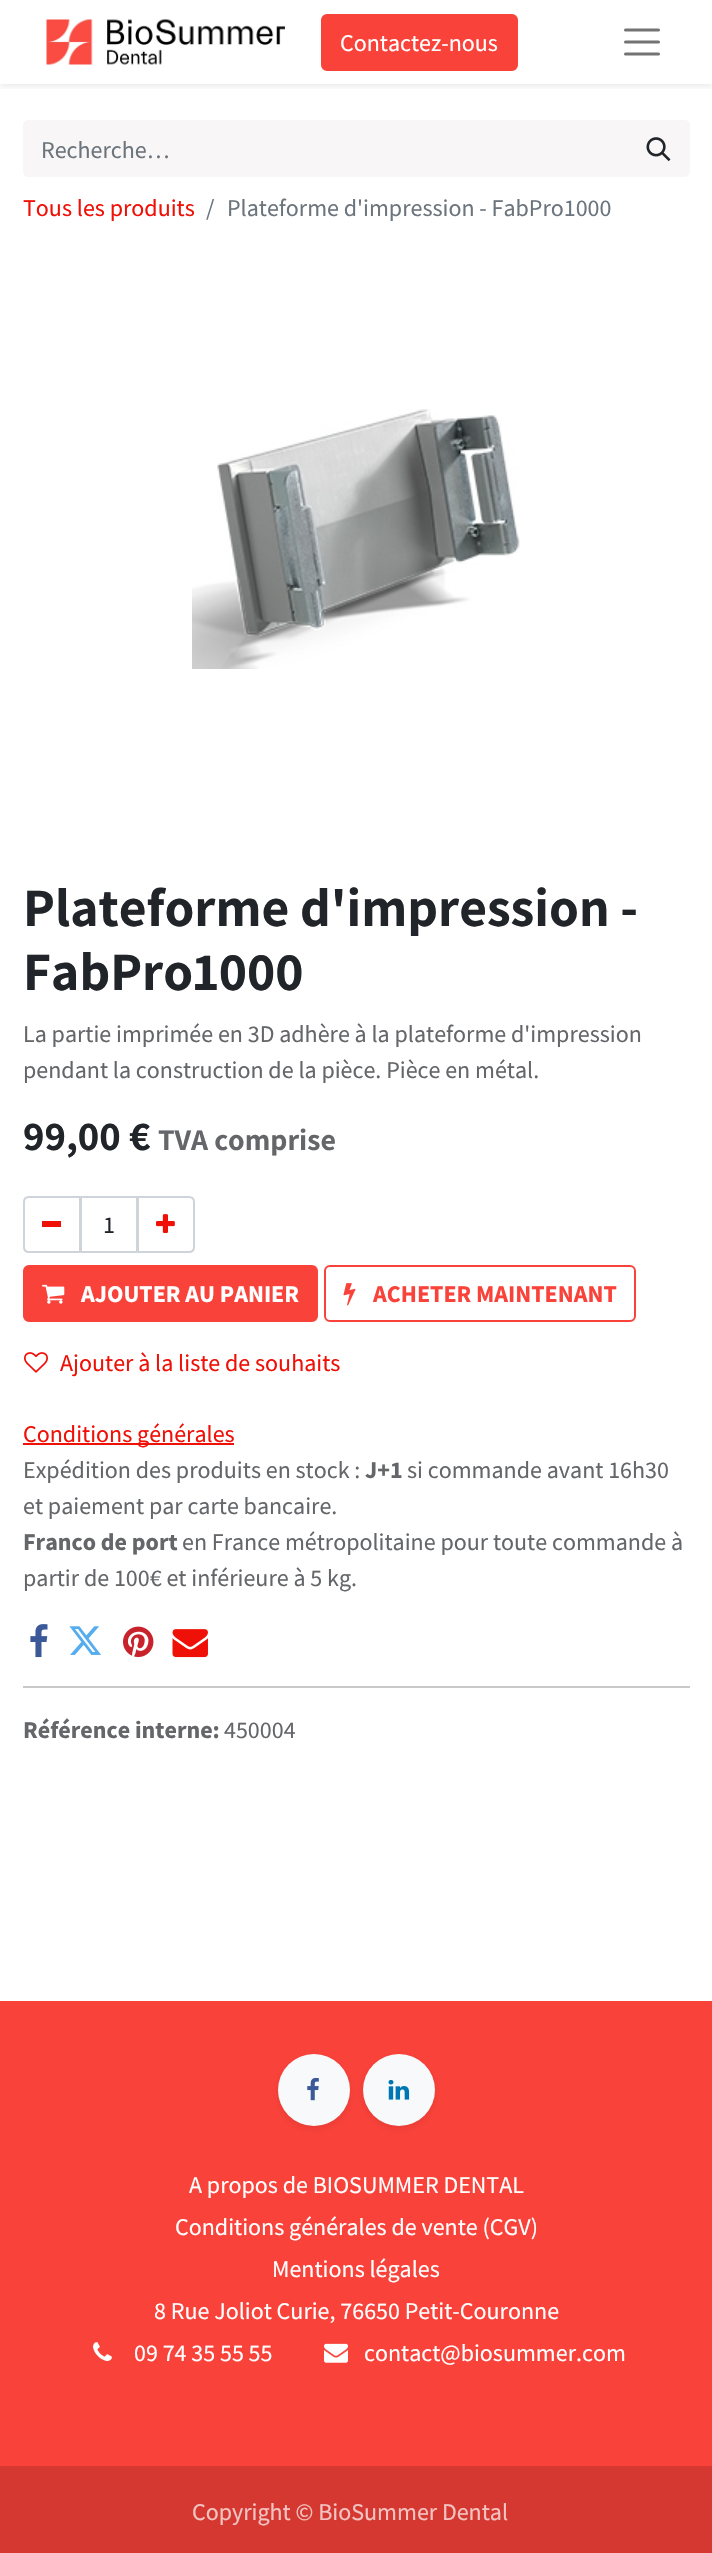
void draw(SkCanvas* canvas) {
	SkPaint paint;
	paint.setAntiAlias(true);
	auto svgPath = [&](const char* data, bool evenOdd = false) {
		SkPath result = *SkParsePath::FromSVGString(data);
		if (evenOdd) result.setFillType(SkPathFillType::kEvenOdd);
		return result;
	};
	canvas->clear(0xffffffff);
	canvas->save();
	canvas->clipRect(SkRect::MakeXYWH(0, 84, 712, 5));
	paint.setColor(0x12000000);
	paint.setMaskFilter(SkMaskFilter::MakeBlur(kNormal_SkBlurStyle, 3));
	canvas->drawRect(SkRect::MakeXYWH(0, 3, 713, 84), paint);
	paint.setMaskFilter(nullptr);
	canvas->restore();
	canvas->drawImageRect(SkImages::DeferredFromEncodedData(SkData::MakeFromFileName("img1.png")), SkRect::MakeXYWH(46, 19, 239, 46), SkSamplingOptions());
	paint.setColor(0xfff9423a);
	canvas->drawRoundRect(SkRect::MakeXYWH(322, 15, 195, 55), 5, 5, paint);
	paint.setStroke(true);
	paint.setStrokeWidth(2);
	canvas->drawRoundRect(SkRect::MakeXYWH(322, 15, 195, 55), 5, 5, paint);
	SkFont f1(fontMgr->matchFamilyStyle("Source Sans Pro", SkFontStyle::Normal()), 24);
	f1.setSubpixel(true);
	paint.setStroke(false);
	paint.setColor(0xffffffff);
	canvas->drawString("Contactez-nous", 340, 51, f1, paint);
	paint.setStroke(true);
	paint.setStrokeWidth(3);
	paint.setStrokeCap(SkPaint::kRound_Cap);
	paint.setColor(0xff737373);
	canvas->drawPath(svgPath("M625.5 30H658.5M625.5 42H658.5M625.5 54H658.5"), paint);
	paint.setStroke(false);
	paint.setColor(0xfff8f6f6);
	canvas->drawPath(svgPath("M29 120H629V177H29C25.5 177 23 174.5 23 171V126C23 122.5 25.5 120 29 120Z"), paint);
	paint.setColor(0xff6c757d);
	canvas->drawString("Recherche…", 41, 158, f1, paint);
	paint.setColor(0xfff8f6f6);
	canvas->drawPath(svgPath("M627 120H684C687.5 120 690 122.5 690 126V171C690 174.5 687.5 177 684 177H627Z"), paint);
	canvas->drawImageRect(SkImages::DeferredFromEncodedData(SkData::MakeFromFileName("img2.png")), SkRect::MakeXYWH(646, 137, 25, 25), SkSamplingOptions());
	paint.setColor(0xffef1107);
	canvas->drawString("Tous les produits", 23, 216, f1, paint);
	paint.setColor(0xff6c757d);
	canvas->drawString("/", 206, 216, f1, paint);
	canvas->drawString("Plateforme d'impression - FabPro1000", 227, 216, f1, paint);
	canvas->drawImageRect(SkImages::DeferredFromEncodedData(SkData::MakeFromFileName("img3.png")), SkRect::MakeXYWH(192, 409, 328, 260), SkSamplingOptions());
	SkFont f2(fontMgr->matchFamilyStyle("Assistant", SkFontStyle::Bold()), 54);
	f2.setSubpixel(true);
	paint.setColor(0xff212529);
	canvas->drawString("Plateforme d'impression -", 23, 926, f2, paint);
	canvas->drawString("FabPro1000", 23, 990, f2, paint);
	paint.setColor(0xff646669);
	canvas->drawString("La partie imprimée en 3D adhère à la plateforme d'impression", 23, 1042, f1, paint);
	canvas->drawString("pendant la construction de la pièce. Pièce en métal.", 23, 1078, f1, paint);
	SkFont f3(fontMgr->matchFamilyStyle("Assistant", SkFontStyle::Bold()), 41);
	f3.setSubpixel(true);
	paint.setColor(0xff212529);
	canvas->drawString("99,00 €", 23, 1150, f3, paint);
	SkFont f4(fontMgr->matchFamilyStyle("Assistant", SkFontStyle::Bold()), 30);
	f4.setSubpixel(true);
	paint.setColor(0xff646669);
	canvas->drawString("TVA comprise", 158, 1150, f4, paint);
	paint.setStroke(true);
	paint.setStrokeWidth(2);
	paint.setStrokeCap(SkPaint::kButt_Cap);
	paint.setColor(0xffced4da);
	canvas->drawRect(SkRect::MakeXYWH(81, 1197, 56, 55), paint);
	canvas->drawPath(svgPath("M29 1197H80V1252H29C26 1252 24 1250 24 1247V1202C24 1199 26 1197 29 1197Z"), paint);
	paint.setStroke(false);
	paint.setColor(0xffef1107);
	canvas->drawRect(SkRect::MakeXYWH(42, 1221, 19, 6), paint);
	paint.setColor(0xff212529);
	canvas->drawString("1", 103, 1233, f1, paint);
	paint.setStroke(true);
	paint.setColor(0xffced4da);
	canvas->drawPath(svgPath("M138 1197H189C192 1197 194 1199 194 1202V1247C194 1250 192 1252 189 1252H138Z"), paint);
	canvas->drawImageRect(SkImages::DeferredFromEncodedData(SkData::MakeFromFileName("img4.png")), SkRect::MakeXYWH(156, 1214, 19, 19), SkSamplingOptions());
	paint.setStroke(false);
	paint.setColor(0xfff9423a);
	canvas->drawRoundRect(SkRect::MakeXYWH(24, 1266, 293, 55), 5, 5, paint);
	paint.setStroke(true);
	canvas->drawRoundRect(SkRect::MakeXYWH(24, 1266, 293, 55), 5, 5, paint);
	canvas->drawImageRect(SkImages::DeferredFromEncodedData(SkData::MakeFromFileName("img5.png")), SkRect::MakeXYWH(42, 1284, 23, 20), SkSamplingOptions());
	SkFont f5(fontMgr->matchFamilyStyle("Source Sans Pro", SkFontStyle::Bold()), 24);
	f5.setSubpixel(true);
	paint.setStroke(false);
	paint.setColor(0xffffffff);
	canvas->drawString("AJOUTER AU PANIER", 81, 1302, f5, paint);
	paint.setStroke(true);
	paint.setColor(0xfff9423a);
	canvas->drawRoundRect(SkRect::MakeXYWH(325, 1266, 310, 55), 5, 5, paint);
	canvas->drawImageRect(SkImages::DeferredFromEncodedData(SkData::MakeFromFileName("img6.png")), SkRect::MakeXYWH(343, 1283, 13, 23), SkSamplingOptions());
	paint.setStroke(false);
	canvas->drawString("ACHETER MAINTENANT", 373, 1302, f5, paint);
	canvas->drawImageRect(SkImages::DeferredFromEncodedData(SkData::MakeFromFileName("img7.png")), SkRect::MakeXYWH(24, 1352, 24, 21), SkSamplingOptions());
	paint.setColor(0xffef1107);
	canvas->drawString("Ajouter à la liste de souhaits", 60, 1371, f1, paint);
	canvas->drawRect(SkRect::MakeXYWH(23, 1443, 211, 2), paint);
	canvas->drawString("Conditions générales", 23, 1442, f1, paint);
	paint.setColor(0xff646669);
	canvas->drawString("Expédition des produits en stock :", 23, 1478, f1, paint);
	canvas->drawString("J+1", 365, 1478, f5, paint);
	canvas->drawString("si commande avant 16h30", 407, 1478, f1, paint);
	canvas->drawString("et paiement par carte bancaire.", 23, 1514, f1, paint);
	canvas->drawString("Franco de port", 23, 1550, f5, paint);
	canvas->drawString("en France métropolitaine pour toute commande à", 182, 1550, f1, paint);
	canvas->drawString("partir de 100€ et inférieure à 5 kg.", 23, 1586, f1, paint);
	canvas->drawImageRect(SkImages::DeferredFromEncodedData(SkData::MakeFromFileName("img8.png")), SkRect::MakeXYWH(30, 1624, 18, 34), SkSamplingOptions());
	canvas->drawImageRect(SkImages::DeferredFromEncodedData(SkData::MakeFromFileName("img9.png")), SkRect::MakeXYWH(69, 1626, 32, 29), SkSamplingOptions());
	canvas->drawImageRect(SkImages::DeferredFromEncodedData(SkData::MakeFromFileName("img10.png")), SkRect::MakeXYWH(123, 1626, 31, 31), SkSamplingOptions());
	canvas->drawImageRect(SkImages::DeferredFromEncodedData(SkData::MakeFromFileName("img11.png")), SkRect::MakeXYWH(172, 1629, 36, 29), SkSamplingOptions());
	paint.setColor(0xffc8c9ca);
	canvas->drawRect(SkRect::MakeXYWH(23, 1686, 667, 2), paint);
	paint.setColor(0xff646669);
	canvas->drawString("Référence interne:", 23, 1738, f5, paint);
	canvas->drawString("450004", 224, 1738, f1, paint);
	paint.setColor(0xfff9423a);
	canvas->drawRect(SkRect::MakeXYWH(0, 2001, 712, 465), paint);
	paint.setColor(0x12000000);
	paint.setMaskFilter(SkMaskFilter::MakeBlur(kNormal_SkBlurStyle, 3));
	canvas->drawRoundRect(SkRect::MakeXYWH(278, 2057, 72, 72), 36, 36, paint);
	paint.setMaskFilter(nullptr);
	paint.setColor(0xfff8f9fa);
	canvas->drawCircle(314, 2090, 36, paint);
	canvas->drawImageRect(SkImages::DeferredFromEncodedData(SkData::MakeFromFileName("img12.png")), SkRect::MakeXYWH(307, 2077, 12, 24), SkSamplingOptions());
	paint.setColor(0x12000000);
	paint.setMaskFilter(SkMaskFilter::MakeBlur(kNormal_SkBlurStyle, 3));
	canvas->drawRoundRect(SkRect::MakeXYWH(363, 2057, 72, 72), 36, 36, paint);
	paint.setMaskFilter(nullptr);
	paint.setColor(0xfff8f9fa);
	canvas->drawCircle(399, 2090, 36, paint);
	canvas->drawImageRect(SkImages::DeferredFromEncodedData(SkData::MakeFromFileName("img13.png")), SkRect::MakeXYWH(388, 2079, 22, 21), SkSamplingOptions());
	paint.setColor(0xffffffff);
	canvas->drawString("A propos de BIOSUMMER DENTAL", 189, 2193, f1, paint);
	canvas->drawString("Conditions générales de vente (CGV)", 175, 2235, f1, paint);
	canvas->drawString("Mentions légales", 272, 2277, f1, paint);
	canvas->drawString("8 Rue Joliot Curie, 76650 Petit-Couronne", 154, 2319, f1, paint);
	canvas->drawImageRect(SkImages::DeferredFromEncodedData(SkData::MakeFromFileName("img14.png")), SkRect::MakeXYWH(93, 2342, 19, 19), SkSamplingOptions());
	canvas->drawString("09 74 35 55 55", 134, 2361, f1, paint);
	canvas->drawImageRect(SkImages::DeferredFromEncodedData(SkData::MakeFromFileName("img15.png")), SkRect::MakeXYWH(324, 2343, 24, 20), SkSamplingOptions());
	canvas->drawString("contact@biosummer.com", 364, 2361, f1, paint);
	paint.setColor(0xffd43831);
	canvas->drawRect(SkRect::MakeXYWH(0, 2466, 712, 87), paint);
	paint.setColor(0xfff2c3c1);
	canvas->drawString("Copyright © BioSummer Dental", 192, 2520, f1, paint);
}
